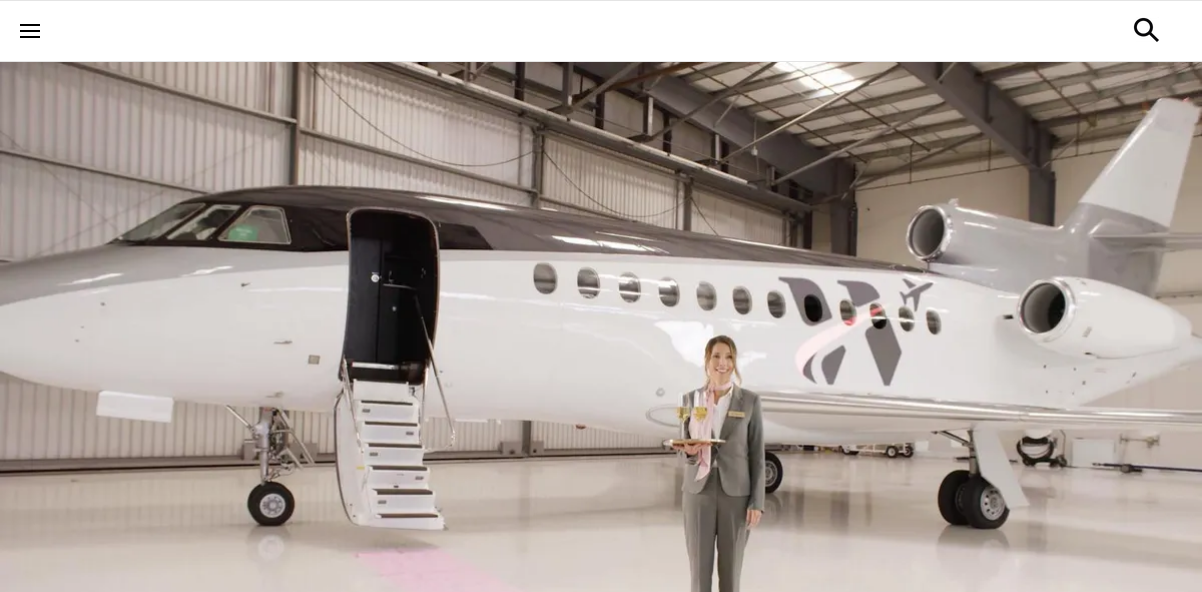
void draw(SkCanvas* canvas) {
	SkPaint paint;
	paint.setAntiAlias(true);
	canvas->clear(0xffffffff);
	paint.setColor(0xffe4e4e4);
	canvas->drawRect(SkRect::MakeXYWH(0, 0, 1202, 1), paint);
	canvas->drawRect(SkRect::MakeXYWH(0, 61, 1202, 1), paint);
	paint.setColor(0xff000000);
	canvas->drawRect(SkRect::MakeXYWH(20, 30, 20, 2), paint);
	canvas->drawRect(SkRect::MakeXYWH(20, 24, 20, 2), paint);
	canvas->drawRect(SkRect::MakeXYWH(20, 36, 20, 2), paint);
	canvas->drawImageRect(SkImages::DeferredFromEncodedData(SkData::MakeFromFileName("img1.png")), SkRect::MakeXYWH(1133, 17, 26, 25), SkSamplingOptions());
	canvas->drawImageRect(SkImages::DeferredFromEncodedData(SkData::MakeFromFileName("img2.png")), SkRect::MakeXYWH(0, 62, 1202, 530), SkSamplingOptions());
}
